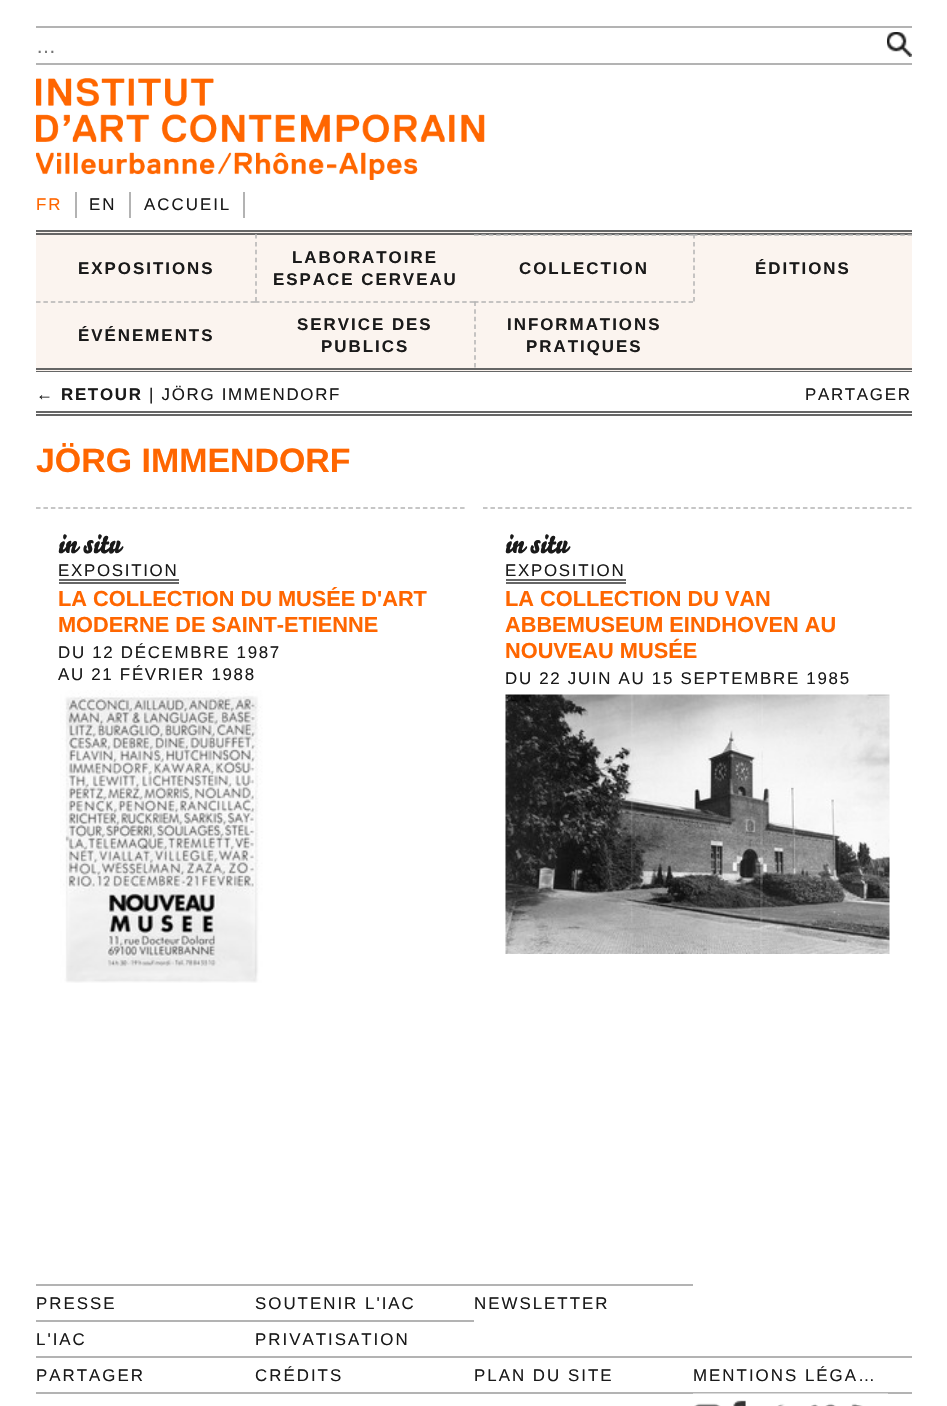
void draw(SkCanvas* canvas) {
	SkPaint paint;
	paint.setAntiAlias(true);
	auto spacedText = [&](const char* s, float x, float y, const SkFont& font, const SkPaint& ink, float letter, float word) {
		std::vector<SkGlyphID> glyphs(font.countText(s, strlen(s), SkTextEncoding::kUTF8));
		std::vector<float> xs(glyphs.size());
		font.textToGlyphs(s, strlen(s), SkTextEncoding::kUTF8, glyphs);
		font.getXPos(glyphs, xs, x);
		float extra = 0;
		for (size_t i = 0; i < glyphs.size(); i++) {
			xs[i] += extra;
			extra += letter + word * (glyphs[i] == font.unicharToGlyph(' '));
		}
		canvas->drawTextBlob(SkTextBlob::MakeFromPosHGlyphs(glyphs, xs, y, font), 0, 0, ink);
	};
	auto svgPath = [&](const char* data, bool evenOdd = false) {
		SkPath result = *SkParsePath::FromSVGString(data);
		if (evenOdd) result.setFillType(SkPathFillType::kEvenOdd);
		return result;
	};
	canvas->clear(0xffffffff);
	paint.setColor(0xffb3b3b3);
	canvas->drawRect(SkRect::MakeXYWH(36, 26, 876, 2), paint);
	canvas->drawRect(SkRect::MakeXYWH(36, 63, 876, 2), paint);
	SkFont f1(fontMgr->matchFamilyStyle("Liberation Sans", SkFontStyle::Normal()), 20);
	f1.setSubpixel(true);
	paint.setColor(0xff757575);
	canvas->drawString("…", 36, 53, f1, paint);
	paint.setColor(0xff1a1a1a);
	canvas->drawRect(SkRect::MakeXYWH(887, 32, 25, 25), paint);
	canvas->drawImageRect(SkImages::DeferredFromEncodedData(SkData::MakeFromFileName("img1.png")), SkRect::MakeXYWH(887, 32, 25, 25), SkSamplingOptions());
	canvas->drawImageRect(SkImages::DeferredFromEncodedData(SkData::MakeFromFileName("img2.png")), SkRect::MakeXYWH(36, 78, 449, 102), SkSamplingOptions());
	paint.setColor(0xffb3b3b3);
	canvas->drawRect(SkRect::MakeXYWH(243, 192, 2, 26), paint);
	SkFont f2(fontMgr->matchFamilyStyle("Liberation Sans", SkFontStyle::Normal()), 16.9);
	f2.setSubpixel(true);
	paint.setColor(0xffff6600);
	spacedText("FR", 36, 210, f2, paint, 2, 0);
	paint.setColor(0xffb3b3b3);
	canvas->drawRect(SkRect::MakeXYWH(75, 192, 2, 26), paint);
	paint.setColor(0xff1a1a1a);
	spacedText("EN", 89, 210, f2, paint, 2, 0);
	paint.setColor(0xffb3b3b3);
	canvas->drawRect(SkRect::MakeXYWH(129, 192, 2, 26), paint);
	paint.setColor(0xff1a1a1a);
	spacedText("ACCUEIL", 144, 210, f2, paint, 2, 0);
	paint.setColor(0xfffbf4ef);
	canvas->drawRect(SkRect::MakeXYWH(36, 232, 876, 139), paint);
	paint.setColor(0xff666666);
	canvas->drawRect(SkRect::MakeXYWH(36, 230, 876, 2), paint);
	canvas->drawRect(SkRect::MakeXYWH(36, 233, 876, 2), paint);
	canvas->drawRect(SkRect::MakeXYWH(36, 368, 876, 2), paint);
	canvas->drawRect(SkRect::MakeXYWH(36, 371, 876, 1), paint);
	SkFont f3(fontMgr->matchFamilyStyle("Liberation Sans", SkFontStyle::Bold()), 16.9);
	f3.setSubpixel(true);
	paint.setColor(0xff1a1a1a);
	spacedText("EXPOSITIONS", 78, 274, f3, paint, 2, 0);
	paint.setStroke(true);
	paint.setStrokeWidth(1.5);
	paint.setColor(0xffb3b3b3);
	paint.setPathEffect(SkDashPathEffect::Make({{4.5f, 3.38f}}, 0));
	canvas->drawPath(svgPath("M256 234V301.5"), paint);
	paint.setPathEffect(nullptr);
	paint.setStroke(false);
	paint.setColor(0xff1a1a1a);
	spacedText("LABORATOIRE", 292, 263, f3, paint, 2, 0);
	spacedText("ESPACE CERVEAU", 273, 285, f3, paint, 2, 0);
	paint.setStroke(true);
	paint.setColor(0xffb3b3b3);
	paint.setPathEffect(SkDashPathEffect::Make({{4.5f, 2.9f}}, 0));
	canvas->drawPath(svgPath("M474 235H693"), paint);
	paint.setPathEffect(nullptr);
	paint.setStroke(false);
	paint.setColor(0xff1a1a1a);
	spacedText("COLLECTION", 519, 274, f3, paint, 2, 0);
	paint.setStroke(true);
	paint.setColor(0xffb3b3b3);
	paint.setPathEffect(SkDashPathEffect::Make({{4.5f, 2.9f}}, 0));
	canvas->drawPath(svgPath("M693 235H912"), paint);
	paint.setPathEffect(nullptr);
	paint.setPathEffect(SkDashPathEffect::Make({{4.5f, 3.38f}}, 0));
	canvas->drawPath(svgPath("M694 234V301.5"), paint);
	paint.setPathEffect(nullptr);
	paint.setStroke(false);
	paint.setColor(0xff1a1a1a);
	spacedText("ÉDITIONS", 755, 274, f3, paint, 2, 0);
	paint.setStroke(true);
	paint.setColor(0xffb3b3b3);
	paint.setPathEffect(SkDashPathEffect::Make({{4.5f, 2.9f}}, 0));
	canvas->drawPath(svgPath("M36 302H255"), paint);
	paint.setPathEffect(nullptr);
	paint.setStroke(false);
	paint.setColor(0xff1a1a1a);
	spacedText("ÉVÉNEMENTS", 78, 341, f3, paint, 2, 0);
	paint.setStroke(true);
	paint.setColor(0xffb3b3b3);
	paint.setPathEffect(SkDashPathEffect::Make({{4.5f, 2.9f}}, 0));
	canvas->drawPath(svgPath("M255 302H474"), paint);
	paint.setPathEffect(nullptr);
	paint.setStroke(false);
	paint.setColor(0xff1a1a1a);
	spacedText("SERVICE DES", 297, 330, f3, paint, 2, 0);
	spacedText("PUBLICS", 321, 352, f3, paint, 2, 0);
	paint.setStroke(true);
	paint.setColor(0xffb3b3b3);
	paint.setPathEffect(SkDashPathEffect::Make({{4.5f, 2.9f}}, 0));
	canvas->drawPath(svgPath("M474 302H693"), paint);
	paint.setPathEffect(nullptr);
	paint.setPathEffect(SkDashPathEffect::Make({{4.5f, 3.18f}}, 0));
	canvas->drawPath(svgPath("M475 301.5V367.5"), paint);
	paint.setPathEffect(nullptr);
	paint.setStroke(false);
	paint.setColor(0xff1a1a1a);
	spacedText("INFORMATIONS", 507, 330, f3, paint, 2, 0);
	spacedText("PRATIQUES", 526, 352, f3, paint, 2, 0);
	paint.setColor(0xff666666);
	canvas->drawRect(SkRect::MakeXYWH(36, 411, 876, 2), paint);
	canvas->drawRect(SkRect::MakeXYWH(36, 414, 876, 2), paint);
	paint.setColor(0xff1a1a1a);
	spacedText("← RETOUR", 36, 400, f3, paint, 1.7, 0);
	spacedText("| JÖRG IMMENDORF", 149, 400, f2, paint, 1.7, 0);
	spacedText("PARTAGER", 805, 400, f2, paint, 1.7, 0);
	SkFont f4(fontMgr->matchFamilyStyle("Liberation Sans", SkFontStyle::Bold()), 33.9);
	f4.setSubpixel(true);
	paint.setColor(0xffff6600);
	canvas->drawString("JÖRG IMMENDORF", 36, 472, f4, paint);
	paint.setStroke(true);
	paint.setColor(0xffb3b3b3);
	paint.setPathEffect(SkDashPathEffect::Make({{4.5f, 2.94f}}, 0));
	canvas->drawPath(svgPath("M36 508H465"), paint);
	paint.setPathEffect(nullptr);
	SkFont f5(fontMgr->matchFamilyStyle("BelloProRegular", SkFontStyle::Normal()), 27);
	f5.setSubpixel(true);
	paint.setStroke(false);
	paint.setColor(0xff1a1a1a);
	canvas->drawString("in situ", 58, 553, f5, paint);
	spacedText("EXPOSITION", 58, 576, f2, paint, 1.7, 0);
	paint.setColor(0xff666666);
	canvas->drawRect(SkRect::MakeXYWH(59, 579, 120, 2), paint);
	canvas->drawRect(SkRect::MakeXYWH(59, 582, 120, 2), paint);
	canvas->save();
	canvas->clipRect(SkRect::MakeXYWH(59, 587, 385, 52));
	SkFont f6(fontMgr->matchFamilyStyle("Liberation Sans", SkFontStyle::Bold()), 21.75);
	f6.setSubpixel(true);
	paint.setColor(0xffff6600);
	canvas->drawString("LA COLLECTION DU MUSÉE D'ART", 58, 606, f6, paint);
	canvas->restore();
	canvas->drawString("MODERNE DE SAINT-ETIENNE", 58, 632, f6, paint);
	paint.setColor(0xff1a1a1a);
	spacedText("DU 12 DÉCEMBRE 1987", 58, 658, f2, paint, 1.7, 0);
	spacedText("AU 21 FÉVRIER 1988", 58, 680, f2, paint, 1.7, 0);
	canvas->drawImageRect(SkImages::DeferredFromEncodedData(SkData::MakeFromFileName("img3.png")), SkRect::MakeXYWH(60, 690, 203, 293), SkSamplingOptions());
	paint.setStroke(true);
	paint.setColor(0xffb3b3b3);
	paint.setPathEffect(SkDashPathEffect::Make({{4.5f, 2.94f}}, 0));
	canvas->drawPath(svgPath("M483 508H912"), paint);
	paint.setPathEffect(nullptr);
	paint.setStroke(false);
	paint.setColor(0xff1a1a1a);
	canvas->drawString("in situ", 505, 553, f5, paint);
	spacedText("EXPOSITION", 505, 576, f2, paint, 1.7, 0);
	paint.setColor(0xff666666);
	canvas->drawRect(SkRect::MakeXYWH(506, 579, 120, 2), paint);
	canvas->drawRect(SkRect::MakeXYWH(506, 582, 120, 2), paint);
	paint.setColor(0xffff6600);
	canvas->drawString("LA COLLECTION DU VAN", 505, 606, f6, paint);
	canvas->drawString("ABBEMUSEUM EINDHOVEN AU", 505, 632, f6, paint);
	canvas->drawString("NOUVEAU MUSÉE", 505, 658, f6, paint);
	paint.setColor(0xff1a1a1a);
	spacedText("DU 22 JUIN AU 15 SEPTEMBRE 1985", 505, 684, f2, paint, 1.7, 0);
	canvas->drawImageRect(SkImages::DeferredFromEncodedData(SkData::MakeFromFileName("img4.png")), SkRect::MakeXYWH(505, 694, 385, 260), SkSamplingOptions());
	paint.setColor(0xffb3b3b3);
	canvas->drawRect(SkRect::MakeXYWH(36, 1284, 657, 2), paint);
	paint.setColor(0xff1a1a1a);
	spacedText("PRESSE", 36, 1309, f2, paint, 2, 0);
	spacedText("SOUTENIR L'IAC", 255, 1309, f2, paint, 2, 0);
	spacedText("NEWSLETTER", 474, 1309, f2, paint, 2, 0);
	paint.setColor(0xffb3b3b3);
	canvas->drawRect(SkRect::MakeXYWH(36, 1320, 438, 2), paint);
	paint.setColor(0xff1a1a1a);
	spacedText("L'IAC", 36, 1345, f2, paint, 2, 0);
	spacedText("PRIVATISATION", 255, 1345, f2, paint, 2, 0);
	paint.setColor(0xffb3b3b3);
	canvas->drawRect(SkRect::MakeXYWH(36, 1356, 876, 2), paint);
	canvas->drawRect(SkRect::MakeXYWH(36, 1392, 876, 2), paint);
	paint.setColor(0xff1a1a1a);
	spacedText("PARTAGER", 36, 1381, f2, paint, 2, 0);
	spacedText("CRÉDITS", 255, 1381, f2, paint, 2, 0);
	spacedText("PLAN DU SITE", 474, 1381, f2, paint, 2, 0);
	spacedText("MENTIONS LÉGA…", 693, 1381, f2, paint, 2, 0);
	paint.setColor(0xff333333);
	canvas->drawRect(SkRect::MakeXYWH(694, 1403, 27, 3), paint);
	canvas->drawImageRect(SkImages::DeferredFromEncodedData(SkData::MakeFromFileName("img5.png")), SkRect::MakeXYWH(693, 1393, 30, 13), SkSamplingOptions());
	canvas->drawRect(SkRect::MakeXYWH(733, 1400, 13, 6), paint);
	canvas->drawImageRect(SkImages::DeferredFromEncodedData(SkData::MakeFromFileName("img6.png")), SkRect::MakeXYWH(723, 1393, 30, 13), SkSamplingOptions());
	canvas->drawRect(SkRect::MakeXYWH(777, 1403, 8, 3), paint);
	canvas->drawImageRect(SkImages::DeferredFromEncodedData(SkData::MakeFromFileName("img7.png")), SkRect::MakeXYWH(753, 1393, 45, 13), SkSamplingOptions());
	canvas->drawRect(SkRect::MakeXYWH(811, 1403, 25, 3), paint);
	canvas->drawImageRect(SkImages::DeferredFromEncodedData(SkData::MakeFromFileName("img8.png")), SkRect::MakeXYWH(798, 1393, 45, 13), SkSamplingOptions());
	canvas->drawRect(SkRect::MakeXYWH(851, 1403, 12, 3), paint);
	canvas->drawImageRect(SkImages::DeferredFromEncodedData(SkData::MakeFromFileName("img9.png")), SkRect::MakeXYWH(843, 1393, 45, 13), SkSamplingOptions());
}
